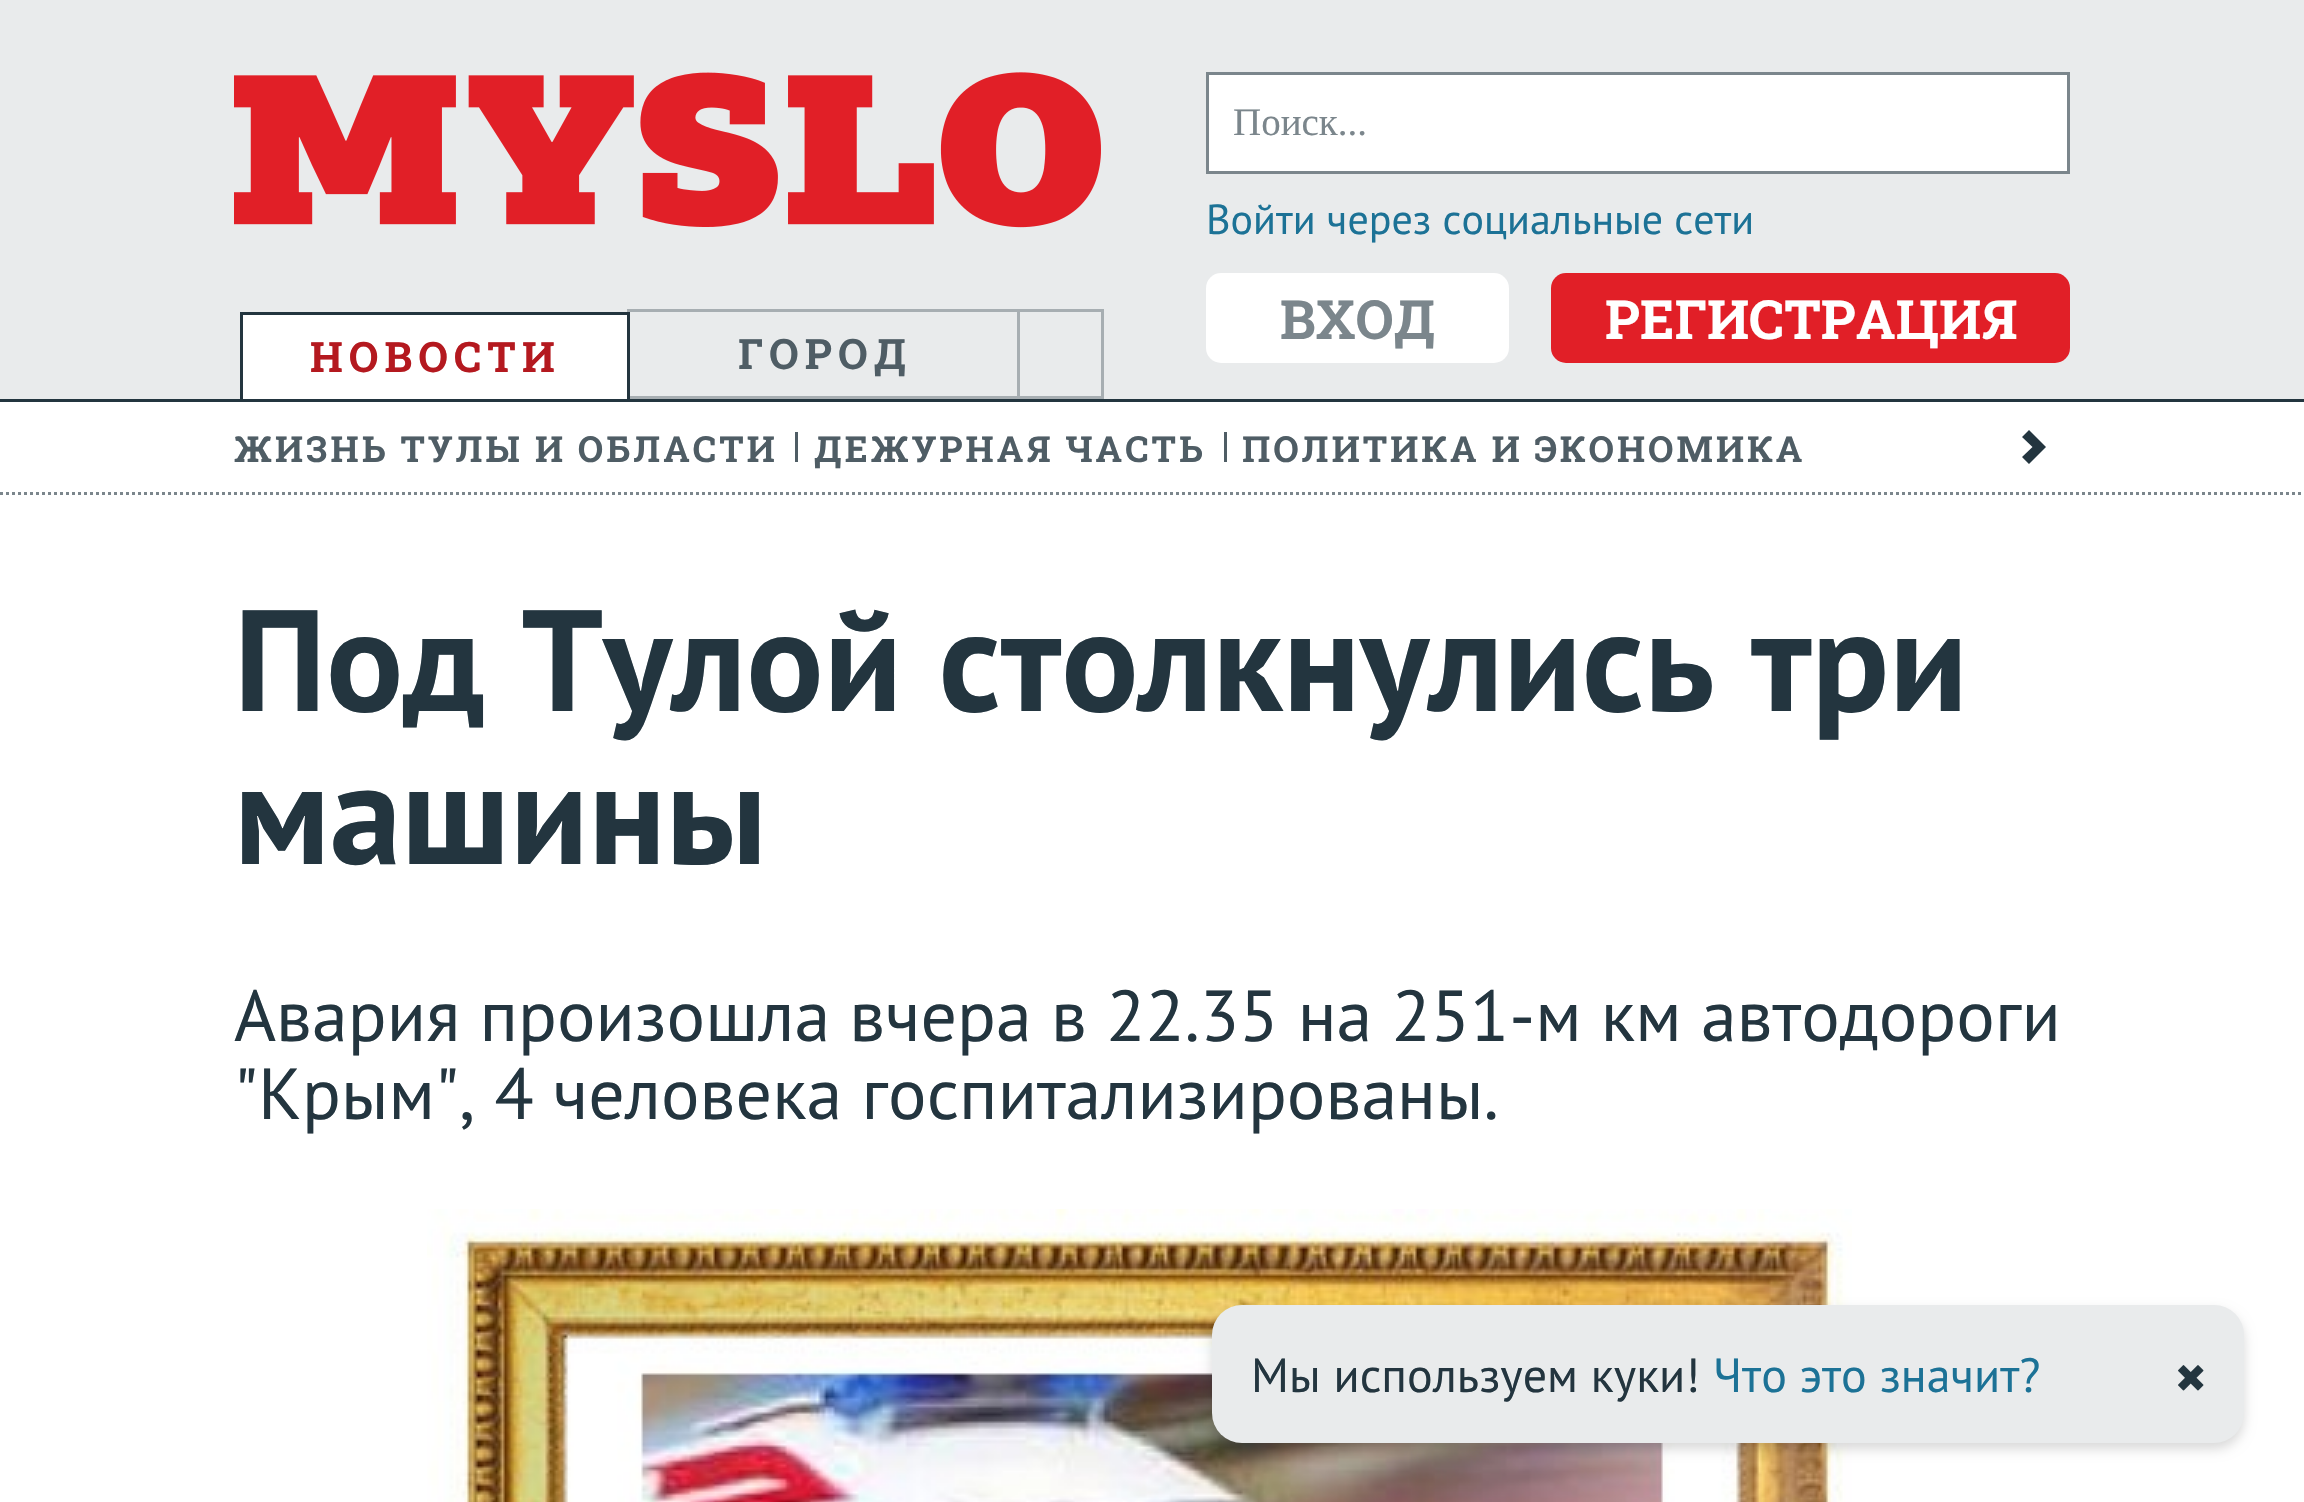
void draw(SkCanvas* canvas) {
	SkPaint paint;
	paint.setAntiAlias(true);
	auto spacedText = [&](const char* s, float x, float y, const SkFont& font, const SkPaint& ink, float letter, float word) {
		std::vector<SkGlyphID> glyphs(font.countText(s, strlen(s), SkTextEncoding::kUTF8));
		std::vector<float> xs(glyphs.size());
		font.textToGlyphs(s, strlen(s), SkTextEncoding::kUTF8, glyphs);
		font.getXPos(glyphs, xs, x);
		float extra = 0;
		for (size_t i = 0; i < glyphs.size(); i++) {
			xs[i] += extra;
			extra += letter + word * (glyphs[i] == font.unicharToGlyph(' '));
		}
		canvas->drawTextBlob(SkTextBlob::MakeFromPosHGlyphs(glyphs, xs, y, font), 0, 0, ink);
	};
	auto svgPath = [&](const char* data, bool evenOdd = false) {
		SkPath result = *SkParsePath::FromSVGString(data);
		if (evenOdd) result.setFillType(SkPathFillType::kEvenOdd);
		return result;
	};
	canvas->clear(0xffffffff);
	paint.setColor(0xffe9ebec);
	canvas->drawRect(SkRect::MakeXYWH(0, 0, 2304, 399), paint);
	paint.setColor(0xff23353f);
	canvas->drawRect(SkRect::MakeXYWH(0, 399, 2304, 3), paint);
	canvas->drawImageRect(SkImages::DeferredFromEncodedData(SkData::MakeFromFileName("img1.png")), SkRect::MakeXYWH(234, 72, 867, 156), SkSamplingOptions());
	paint.setColor(0xffffffff);
	canvas->drawRect(SkRect::MakeXYWH(1207.5, 73.5, 861, 99), paint);
	paint.setStroke(true);
	paint.setStrokeWidth(3);
	paint.setColor(0xff7b868c);
	canvas->drawRect(SkRect::MakeXYWH(1207.5, 73.5, 861, 99), paint);
	SkFont f1(fontMgr->matchFamilyStyle("Liberation Serif", SkFontStyle::Normal()), 39);
	f1.setSubpixel(true);
	paint.setStroke(false);
	canvas->drawString("Поиск...", 1233, 135, f1, paint);
	SkFont f2(fontMgr->matchFamilyStyle("PT Sans", SkFontStyle::Normal()), 42);
	f2.setSubpixel(true);
	paint.setColor(0xff1c7296);
	canvas->drawString("Войти через социальные сети", 1206, 234, f2, paint);
	paint.setColor(0xffffffff);
	canvas->drawRoundRect(SkRect::MakeXYWH(1206, 273, 303, 90), 15, 15, paint);
	SkFont f3(fontMgr->matchFamilyStyle("Roboto Slab", SkFontStyle::Bold()), 54);
	f3.setSubpixel(true);
	paint.setColor(0xff7b868c);
	canvas->drawString("ВХОД", 1280, 339, f3, paint);
	paint.setColor(0xffe11f27);
	canvas->drawRoundRect(SkRect::MakeXYWH(1551, 273, 519, 90), 15, 15, paint);
	paint.setColor(0xffffffff);
	canvas->drawString("РЕГИСТРАЦИЯ", 1605, 339, f3, paint);
	paint.setStroke(true);
	paint.setColor(0xffa7aeb2);
	canvas->drawRect(SkRect::MakeXYWH(628.5, 310.5, 393, 87), paint);
	paint.setStroke(false);
	paint.setColor(0xffffffff);
	canvas->drawRect(SkRect::MakeXYWH(241.5, 313.5, 387, 87), paint);
	paint.setStroke(true);
	paint.setColor(0xff23353f);
	canvas->drawRect(SkRect::MakeXYWH(241.5, 313.5, 387, 87), paint);
	SkFont f4(fontMgr->matchFamilyStyle("Roboto Slab", SkFontStyle::Bold()), 42);
	f4.setSubpixel(true);
	paint.setStroke(false);
	paint.setColor(0xffb4191f);
	spacedText("НОВОСТИ", 310, 372, f4, paint, 6, 0);
	paint.setColor(0xff4f5d65);
	spacedText("ГОРОД", 738, 369, f4, paint, 6, 0);
	paint.setColor(0xffe9ebec);
	canvas->drawRect(SkRect::MakeXYWH(1020, 312, 3, 84), paint);
	paint.setStroke(true);
	paint.setColor(0xffa7aeb2);
	canvas->drawRect(SkRect::MakeXYWH(1018.5, 310.5, 84, 87), paint);
	paint.setColor(0xff7b868c);
	paint.setPathEffect(SkDashPathEffect::Make({{3, 3}}, 0));
	canvas->drawPath(svgPath("M0 493.5H2304"), paint);
	paint.setPathEffect(nullptr);
	SkFont f5(fontMgr->matchFamilyStyle("Roboto Slab", SkFontStyle::Bold()), 36);
	f5.setSubpixel(true);
	paint.setStroke(false);
	paint.setColor(0xff4f5d65);
	spacedText("ЖИЗНЬ ТУЛЫ И ОБЛАСТИ", 234, 462, f5, paint, 3, 0);
	canvas->drawRect(SkRect::MakeXYWH(795, 432, 3, 30), paint);
	spacedText("ДЕЖУРНАЯ ЧАСТЬ", 814, 462, f5, paint, 3, 0);
	canvas->drawRect(SkRect::MakeXYWH(1224, 432, 3, 30), paint);
	spacedText("ПОЛИТИКА И ЭКОНОМИКА", 1242, 462, f5, paint, 3, 0);
	paint.setColor(0xff23353f);
	canvas->drawPath(svgPath("M2029 430L2046 447L2029 464L2022 457L2032.5 447L2022 437Z"), paint);
	SkFont f6(fontMgr->matchFamilyStyle("PT Sans", SkFontStyle::Bold()), 144);
	f6.setSubpixel(true);
	canvas->drawString("Под Тулой столкнулись три", 234, 711, f6, paint);
	canvas->drawString("машины", 234, 864, f6, paint);
	SkFont f7(fontMgr->matchFamilyStyle("PT Sans", SkFontStyle::Normal()), 72);
	f7.setSubpixel(true);
	canvas->drawString("Авария произошла вчера в 22.35 на 251-м км автодороги", 234, 1041, f7, paint);
	canvas->drawString("\"Крым\", 4 человека госпитализированы.", 234, 1119, f7, paint);
	canvas->drawImageRect(SkImages::DeferredFromEncodedData(SkData::MakeFromFileName("img2.png")), SkRect::MakeXYWH(427, 1209, 1425, 293), SkSamplingOptions());
	paint.setColor(0x26000000);
	paint.setMaskFilter(SkMaskFilter::MakeBlur(kNormal_SkBlurStyle, 6));
	canvas->drawRoundRect(SkRect::MakeXYWH(1212, 1311, 1032, 138), 30, 30, paint);
	paint.setMaskFilter(nullptr);
	paint.setColor(0xffe9ebec);
	canvas->drawRoundRect(SkRect::MakeXYWH(1212, 1305, 1032, 138), 30, 30, paint);
	SkFont f8(fontMgr->matchFamilyStyle("PT Sans", SkFontStyle::Normal()), 48);
	f8.setSubpixel(true);
	paint.setColor(0xff23353f);
	canvas->drawString("Мы используем куки!", 1251, 1392, f8, paint);
	paint.setColor(0xff1c7296);
	canvas->drawString("Что это значит?", 1713, 1392, f8, paint);
	canvas->drawImageRect(SkImages::DeferredFromEncodedData(SkData::MakeFromFileName("img3.png")), SkRect::MakeXYWH(2178, 1365, 26, 26), SkSamplingOptions());
}
